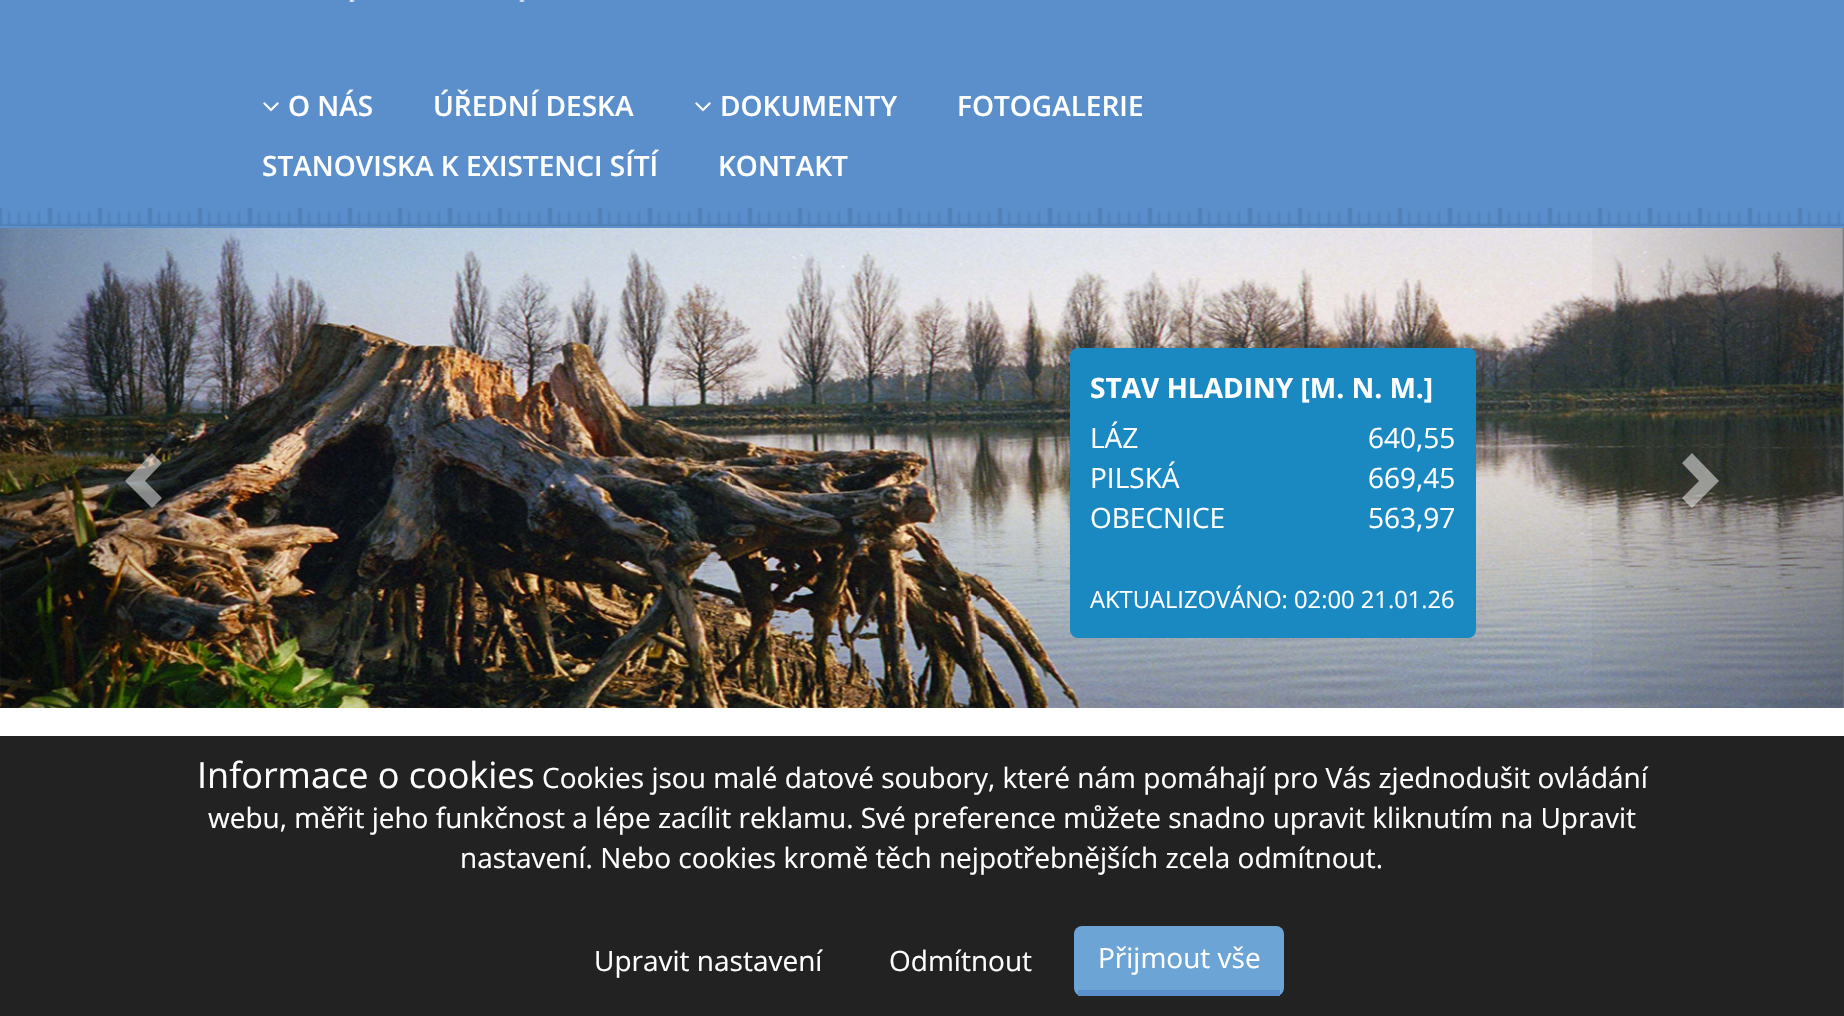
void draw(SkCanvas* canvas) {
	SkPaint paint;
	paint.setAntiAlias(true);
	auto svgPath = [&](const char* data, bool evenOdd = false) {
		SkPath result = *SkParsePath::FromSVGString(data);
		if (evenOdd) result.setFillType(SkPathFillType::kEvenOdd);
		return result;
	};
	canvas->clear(0xffffffff);
	paint.setColor(0xff5a8fcb);
	canvas->drawRect(SkRect::MakeXYWH(0, 0, 1844, 228), paint);
	canvas->drawImageRect(SkImages::DeferredFromEncodedData(SkData::MakeFromFileName("img1.png")), SkRect::MakeXYWH(0, 208, 1844, 18), SkSamplingOptions());
	canvas->drawImageRect(SkImages::DeferredFromEncodedData(SkData::MakeFromFileName("img2.png")), SkRect::MakeXYWH(349, 0, 176, 2), SkSamplingOptions());
	canvas->drawImageRect(SkImages::DeferredFromEncodedData(SkData::MakeFromFileName("img3.png")), SkRect::MakeXYWH(263, 102, 16, 10), SkSamplingOptions());
	SkFont f1(fontMgr->matchFamilyStyle("Open Sans", SkFontStyle(600, SkFontStyle::kNormal_Width, SkFontStyle::kUpright_Slant)), 28);
	f1.setSubpixel(true);
	paint.setColor(0xffffffff);
	canvas->drawString("O NÁS", 288, 116, f1, paint);
	canvas->drawString("ÚŘEDNÍ DESKA", 433, 116, f1, paint);
	canvas->drawImageRect(SkImages::DeferredFromEncodedData(SkData::MakeFromFileName("img3.png")), SkRect::MakeXYWH(695, 102, 16, 10), SkSamplingOptions());
	canvas->drawString("DOKUMENTY", 720, 116, f1, paint);
	canvas->drawString("FOTOGALERIE", 957, 116, f1, paint);
	canvas->drawString("STANOVISKA K EXISTENCI SÍTÍ", 262, 176, f1, paint);
	canvas->drawString("KONTAKT", 718, 176, f1, paint);
	canvas->drawImageRect(SkImages::DeferredFromEncodedData(SkData::MakeFromFileName("img4.png")), SkRect::MakeXYWH(0, 228, 1844, 480), SkSamplingOptions());
	paint.setColor(0x80ffffff);
	canvas->drawPath(svgPath("M162 463L145 481L162 498L152 508L125 481L152 453Z"), paint);
	paint.setColor(0xff1a89c2);
	canvas->drawRoundRect(SkRect::MakeXYWH(1070, 348, 406, 290), 8, 8, paint);
	SkFont f2(fontMgr->matchFamilyStyle("Open Sans", SkFontStyle::Bold()), 28);
	f2.setSubpixel(true);
	paint.setColor(0xffffffff);
	canvas->drawString("STAV HLADINY [M. N. M.]", 1090, 398, f2, paint);
	SkFont f3(fontMgr->matchFamilyStyle("Open Sans", SkFontStyle::Normal()), 28);
	f3.setSubpixel(true);
	canvas->drawString("LÁZ", 1090, 448, f3, paint);
	canvas->drawString("640,55", 1368, 448, f3, paint);
	canvas->drawString("PILSKÁ", 1090, 488, f3, paint);
	canvas->drawString("669,45", 1368, 488, f3, paint);
	canvas->drawString("OBECNICE", 1090, 528, f3, paint);
	canvas->drawString("563,97", 1368, 528, f3, paint);
	SkFont f4(fontMgr->matchFamilyStyle("Open Sans", SkFontStyle::Normal()), 23.75);
	f4.setSubpixel(true);
	canvas->drawString("AKTUALIZOVÁNO: 02:00 21.01.26", 1090, 608, f4, paint);
	{
		const SkColor colors[] = {0x00000000, 0x40000000};
		const float stops[] = {0, 1};
		const SkPoint ends[] = {{1568, 468}, {1844, 468}};
		paint.setShader(SkGradientShader::MakeLinear(ends, colors, stops, 2, SkTileMode::kClamp));
		paint.setAlpha(255);
	}
	canvas->drawRect(SkRect::MakeXYWH(1592, 228, 252, 480), paint);
	paint.setShader(nullptr);
	paint.setColor(0x80ffffff);
	canvas->drawPath(svgPath("M1719 481L1692 508L1682 498L1699 481L1682 463L1692 453Z"), paint);
	paint.setColor(0xff222222);
	canvas->drawRect(SkRect::MakeXYWH(0, 736, 1844, 280), paint);
	SkFont f5(fontMgr->matchFamilyStyle("Open Sans", SkFontStyle::Normal()), 36);
	f5.setSubpixel(true);
	paint.setColor(0xffffffff);
	canvas->drawString("Informace o cookies", 197, 788, f5, paint);
	canvas->drawString("Cookies jsou malé datové soubory, které nám pomáhají pro Vás zjednodušit ovládání", 542, 788, f3, paint);
	canvas->drawString("webu, měřit jeho funkčnost a lépe zacílit reklamu. Své preference můžete snadno upravit kliknutím na Upravit", 208, 828, f3, paint);
	canvas->drawString("nastavení. Nebo cookies kromě těch nejpotřebnějších zcela odmítnout.", 460, 868, f3, paint);
	canvas->drawString("Upravit nastavení", 594, 971, f3, paint);
	canvas->drawString("Odmítnout", 889, 971, f3, paint);
	paint.setColor(0xff6ca4d5);
	canvas->drawRoundRect(SkRect::MakeXYWH(1074, 926, 210, 70), 8, 8, paint);
	paint.setColor(0xff5b8fcb);
	canvas->drawRect(SkRect::MakeXYWH(1078, 990, 202, 6), paint);
	paint.setColor(0xffffffff);
	canvas->drawString("Přijmout vše", 1098, 968, f3, paint);
}
